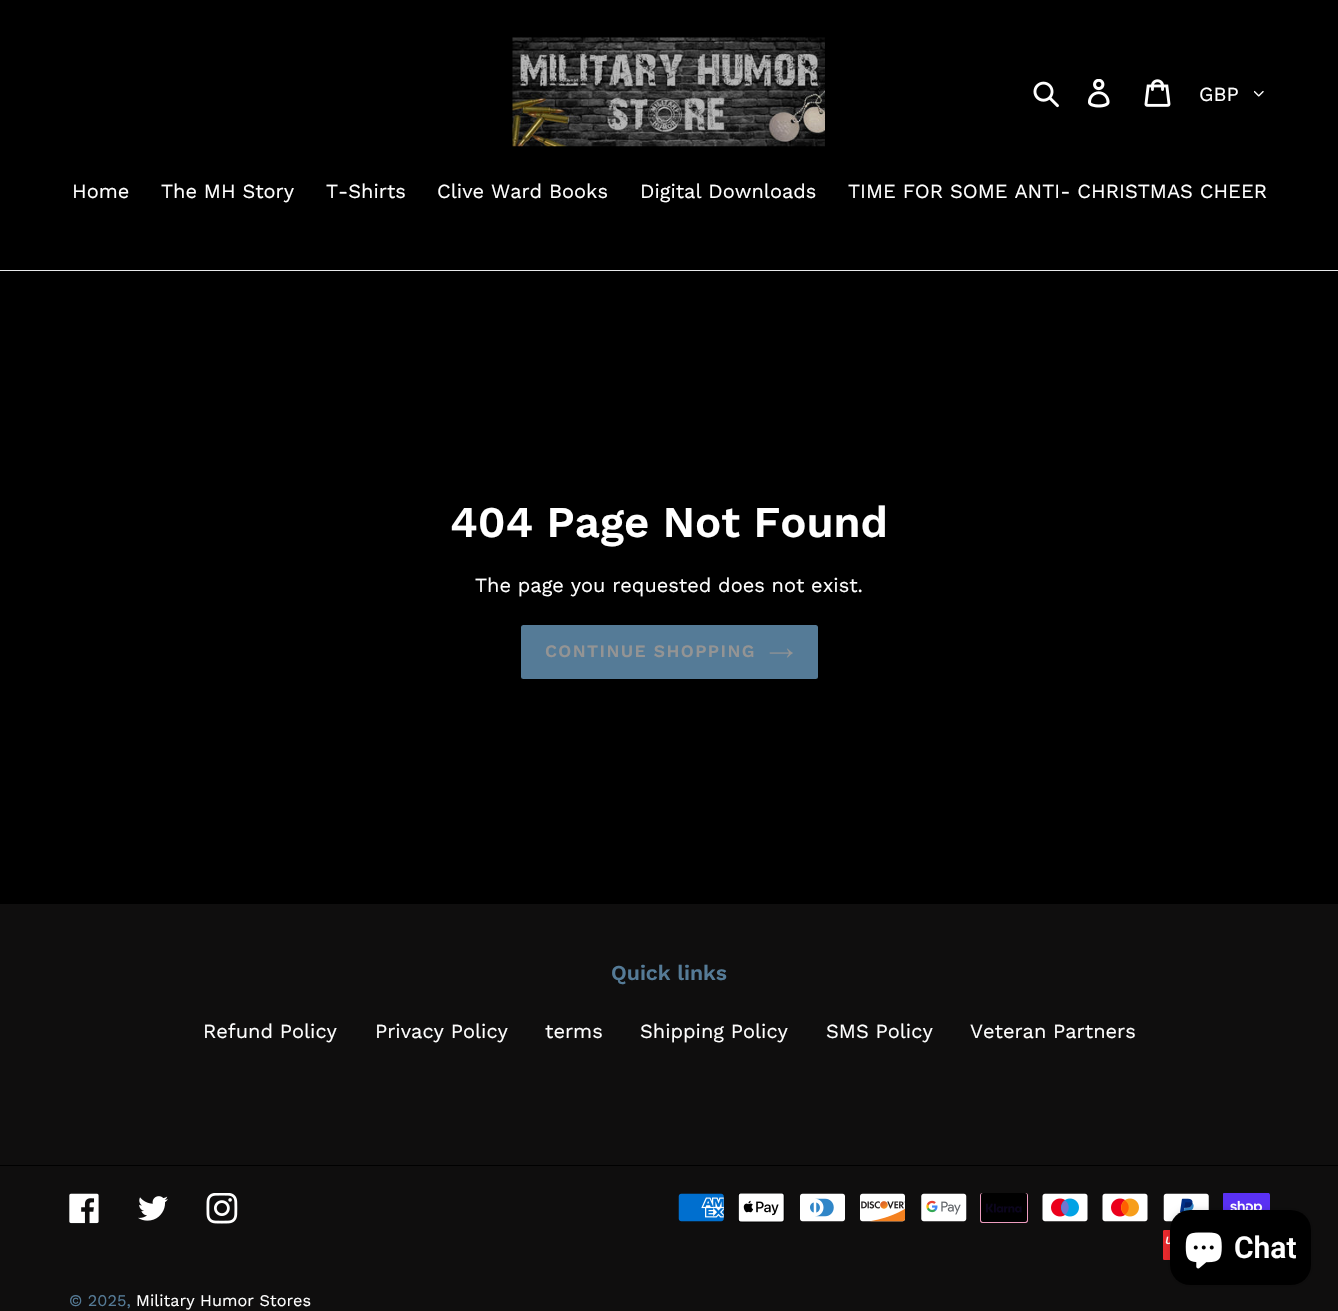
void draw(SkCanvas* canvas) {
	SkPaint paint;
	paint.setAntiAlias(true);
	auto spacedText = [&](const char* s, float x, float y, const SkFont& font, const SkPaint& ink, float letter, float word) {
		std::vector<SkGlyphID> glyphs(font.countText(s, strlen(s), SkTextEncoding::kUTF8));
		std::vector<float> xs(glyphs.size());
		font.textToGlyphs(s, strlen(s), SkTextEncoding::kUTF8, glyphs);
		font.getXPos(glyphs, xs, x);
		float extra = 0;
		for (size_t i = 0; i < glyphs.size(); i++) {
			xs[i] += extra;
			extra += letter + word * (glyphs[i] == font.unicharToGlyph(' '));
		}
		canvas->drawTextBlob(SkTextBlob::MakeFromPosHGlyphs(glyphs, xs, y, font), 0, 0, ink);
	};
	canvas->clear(0xff000000);
	canvas->drawImageRect(SkImages::DeferredFromEncodedData(SkData::MakeFromFileName("img1.png")), SkRect::MakeXYWH(512, 37, 313, 110), SkSamplingOptions());
	canvas->drawImageRect(SkImages::DeferredFromEncodedData(SkData::MakeFromFileName("img2.png")), SkRect::MakeXYWH(1033, 81, 26, 27), SkSamplingOptions());
	canvas->drawImageRect(SkImages::DeferredFromEncodedData(SkData::MakeFromFileName("img3.png")), SkRect::MakeXYWH(1088, 79, 22, 29), SkSamplingOptions());
	canvas->drawImageRect(SkImages::DeferredFromEncodedData(SkData::MakeFromFileName("img4.png")), SkRect::MakeXYWH(1144, 79, 27, 28), SkSamplingOptions());
	SkFont f1(fontMgr->matchFamilyStyle("Work Sans", SkFontStyle::Normal()), 20);
	f1.setSubpixel(true);
	paint.setColor(0xffffffff);
	canvas->drawString("GBP", 1199, 101, f1, paint);
	canvas->drawImageRect(SkImages::DeferredFromEncodedData(SkData::MakeFromFileName("img5.png")), SkRect::MakeXYWH(1254, 90, 10, 7), SkSamplingOptions());
	paint.setColor(0xffe8e9eb);
	canvas->drawRect(SkRect::MakeXYWH(0, 270, 1338, 1), paint);
	paint.setColor(0xffffffff);
	canvas->drawString("Home", 72, 198, f1, paint);
	canvas->drawString("The MH Story", 161, 198, f1, paint);
	canvas->drawString("T-Shirts", 326, 198, f1, paint);
	canvas->drawString("Clive Ward Books", 437, 198, f1, paint);
	canvas->drawString("Digital Downloads", 640, 198, f1, paint);
	canvas->drawString("TIME FOR SOME ANTI- CHRISTMAS CHEER", 848, 198, f1, paint);
	SkFont f2(fontMgr->matchFamilyStyle("Work Sans", SkFontStyle(600, SkFontStyle::kNormal_Width, SkFontStyle::kUpright_Slant)), 43.75);
	f2.setSubpixel(true);
	canvas->drawString("404 Page Not Found", 450, 537, f2, paint);
	canvas->drawString("The page you requested does not exist.", 475, 592, f1, paint);
	paint.setColor(0xff557b97);
	canvas->drawRoundRect(SkRect::MakeXYWH(521, 625, 297, 54), 2.5, 2.5, paint);
	SkFont f3(fontMgr->matchFamilyStyle("Work Sans", SkFontStyle(600, SkFontStyle::kNormal_Width, SkFontStyle::kUpright_Slant)), 17.5);
	f3.setSubpixel(true);
	paint.setColor(0xff949494);
	spacedText("CONTINUE SHOPPING", 545, 657, f3, paint, 1.4, 0);
	canvas->drawImageRect(SkImages::DeferredFromEncodedData(SkData::MakeFromFileName("img6.png")), SkRect::MakeXYWH(769, 648, 24, 10), SkSamplingOptions());
	paint.setColor(0xff0f0e0e);
	canvas->drawRect(SkRect::MakeXYWH(0, 904, 1338, 407), paint);
	SkFont f4(fontMgr->matchFamilyStyle("Work Sans", SkFontStyle(600, SkFontStyle::kNormal_Width, SkFontStyle::kUpright_Slant)), 21.25);
	f4.setSubpixel(true);
	paint.setColor(0xff557b97);
	canvas->drawString("Quick links", 611, 980, f4, paint);
	paint.setColor(0xffffffff);
	canvas->drawString("Refund Policy", 203, 1038, f1, paint);
	canvas->drawString("Privacy Policy", 375, 1038, f1, paint);
	canvas->drawString("terms", 545, 1038, f1, paint);
	canvas->drawString("Shipping Policy", 640, 1038, f1, paint);
	canvas->drawString("SMS Policy", 826, 1038, f1, paint);
	canvas->drawString("Veteran Partners", 970, 1038, f1, paint);
	paint.setColor(0xff000000);
	canvas->drawRect(SkRect::MakeXYWH(0, 1165, 1338, 1), paint);
	canvas->drawImageRect(SkImages::DeferredFromEncodedData(SkData::MakeFromFileName("img7.png")), SkRect::MakeXYWH(69, 1193, 30, 31), SkSamplingOptions());
	canvas->drawImageRect(SkImages::DeferredFromEncodedData(SkData::MakeFromFileName("img8.png")), SkRect::MakeXYWH(138, 1196, 30, 25), SkSamplingOptions());
	canvas->drawImageRect(SkImages::DeferredFromEncodedData(SkData::MakeFromFileName("img9.png")), SkRect::MakeXYWH(206, 1193, 32, 31), SkSamplingOptions());
	canvas->drawImageRect(SkImages::DeferredFromEncodedData(SkData::MakeFromFileName("img10.png")), SkRect::MakeXYWH(678, 1193, 46, 29), SkSamplingOptions());
	canvas->drawImageRect(SkImages::DeferredFromEncodedData(SkData::MakeFromFileName("img11.png")), SkRect::MakeXYWH(738, 1193, 47, 30), SkSamplingOptions());
	canvas->drawImageRect(SkImages::DeferredFromEncodedData(SkData::MakeFromFileName("img12.png")), SkRect::MakeXYWH(800, 1193, 45, 29), SkSamplingOptions());
	canvas->drawImageRect(SkImages::DeferredFromEncodedData(SkData::MakeFromFileName("img13.png")), SkRect::MakeXYWH(860, 1193, 46, 29), SkSamplingOptions());
	canvas->drawImageRect(SkImages::DeferredFromEncodedData(SkData::MakeFromFileName("img14.png")), SkRect::MakeXYWH(921, 1193, 46, 29), SkSamplingOptions());
	canvas->drawImageRect(SkImages::DeferredFromEncodedData(SkData::MakeFromFileName("img15.png")), SkRect::MakeXYWH(980, 1193, 48, 30), SkSamplingOptions());
	canvas->drawImageRect(SkImages::DeferredFromEncodedData(SkData::MakeFromFileName("img16.png")), SkRect::MakeXYWH(1042, 1193, 46, 29), SkSamplingOptions());
	canvas->drawImageRect(SkImages::DeferredFromEncodedData(SkData::MakeFromFileName("img17.png")), SkRect::MakeXYWH(1102, 1193, 46, 29), SkSamplingOptions());
	canvas->drawImageRect(SkImages::DeferredFromEncodedData(SkData::MakeFromFileName("img18.png")), SkRect::MakeXYWH(1163, 1193, 46, 29), SkSamplingOptions());
	canvas->drawImageRect(SkImages::DeferredFromEncodedData(SkData::MakeFromFileName("img19.png")), SkRect::MakeXYWH(1223, 1193, 47, 17), SkSamplingOptions());
	canvas->drawImageRect(SkImages::DeferredFromEncodedData(SkData::MakeFromFileName("img20.png")), SkRect::MakeXYWH(1163, 1230, 7, 30), SkSamplingOptions());
	SkFont f5(fontMgr->matchFamilyStyle("Work Sans", SkFontStyle::Normal()), 16.25);
	f5.setSubpixel(true);
	paint.setColor(0xff557b97);
	canvas->drawString("© 2025,", 69, 1306, f5, paint);
	paint.setColor(0xffffffff);
	canvas->drawString("Military Humor Stores", 136, 1306, f5, paint);
	paint.setColor(0x26000000);
	paint.setMaskFilter(SkMaskFilter::MakeBlur(kNormal_SkBlurStyle, 3));
	canvas->drawRoundRect(SkRect::MakeXYWH(1170, 1210, 141, 75), 20, 20, paint);
	paint.setMaskFilter(nullptr);
	paint.setColor(0xff000000);
	canvas->drawRoundRect(SkRect::MakeXYWH(1170, 1210, 141, 75), 20, 20, paint);
	canvas->drawImageRect(SkImages::DeferredFromEncodedData(SkData::MakeFromFileName("img21.png")), SkRect::MakeXYWH(1185, 1232, 37, 37), SkSamplingOptions());
	SkFont f6(fontMgr->matchFamilyStyle("Roboto", SkFontStyle(600, SkFontStyle::kNormal_Width, SkFontStyle::kUpright_Slant)), 30);
	f6.setSubpixel(true);
	paint.setColor(0xffffffff);
	canvas->drawString("Chat", 1234, 1258, f6, paint);
}
